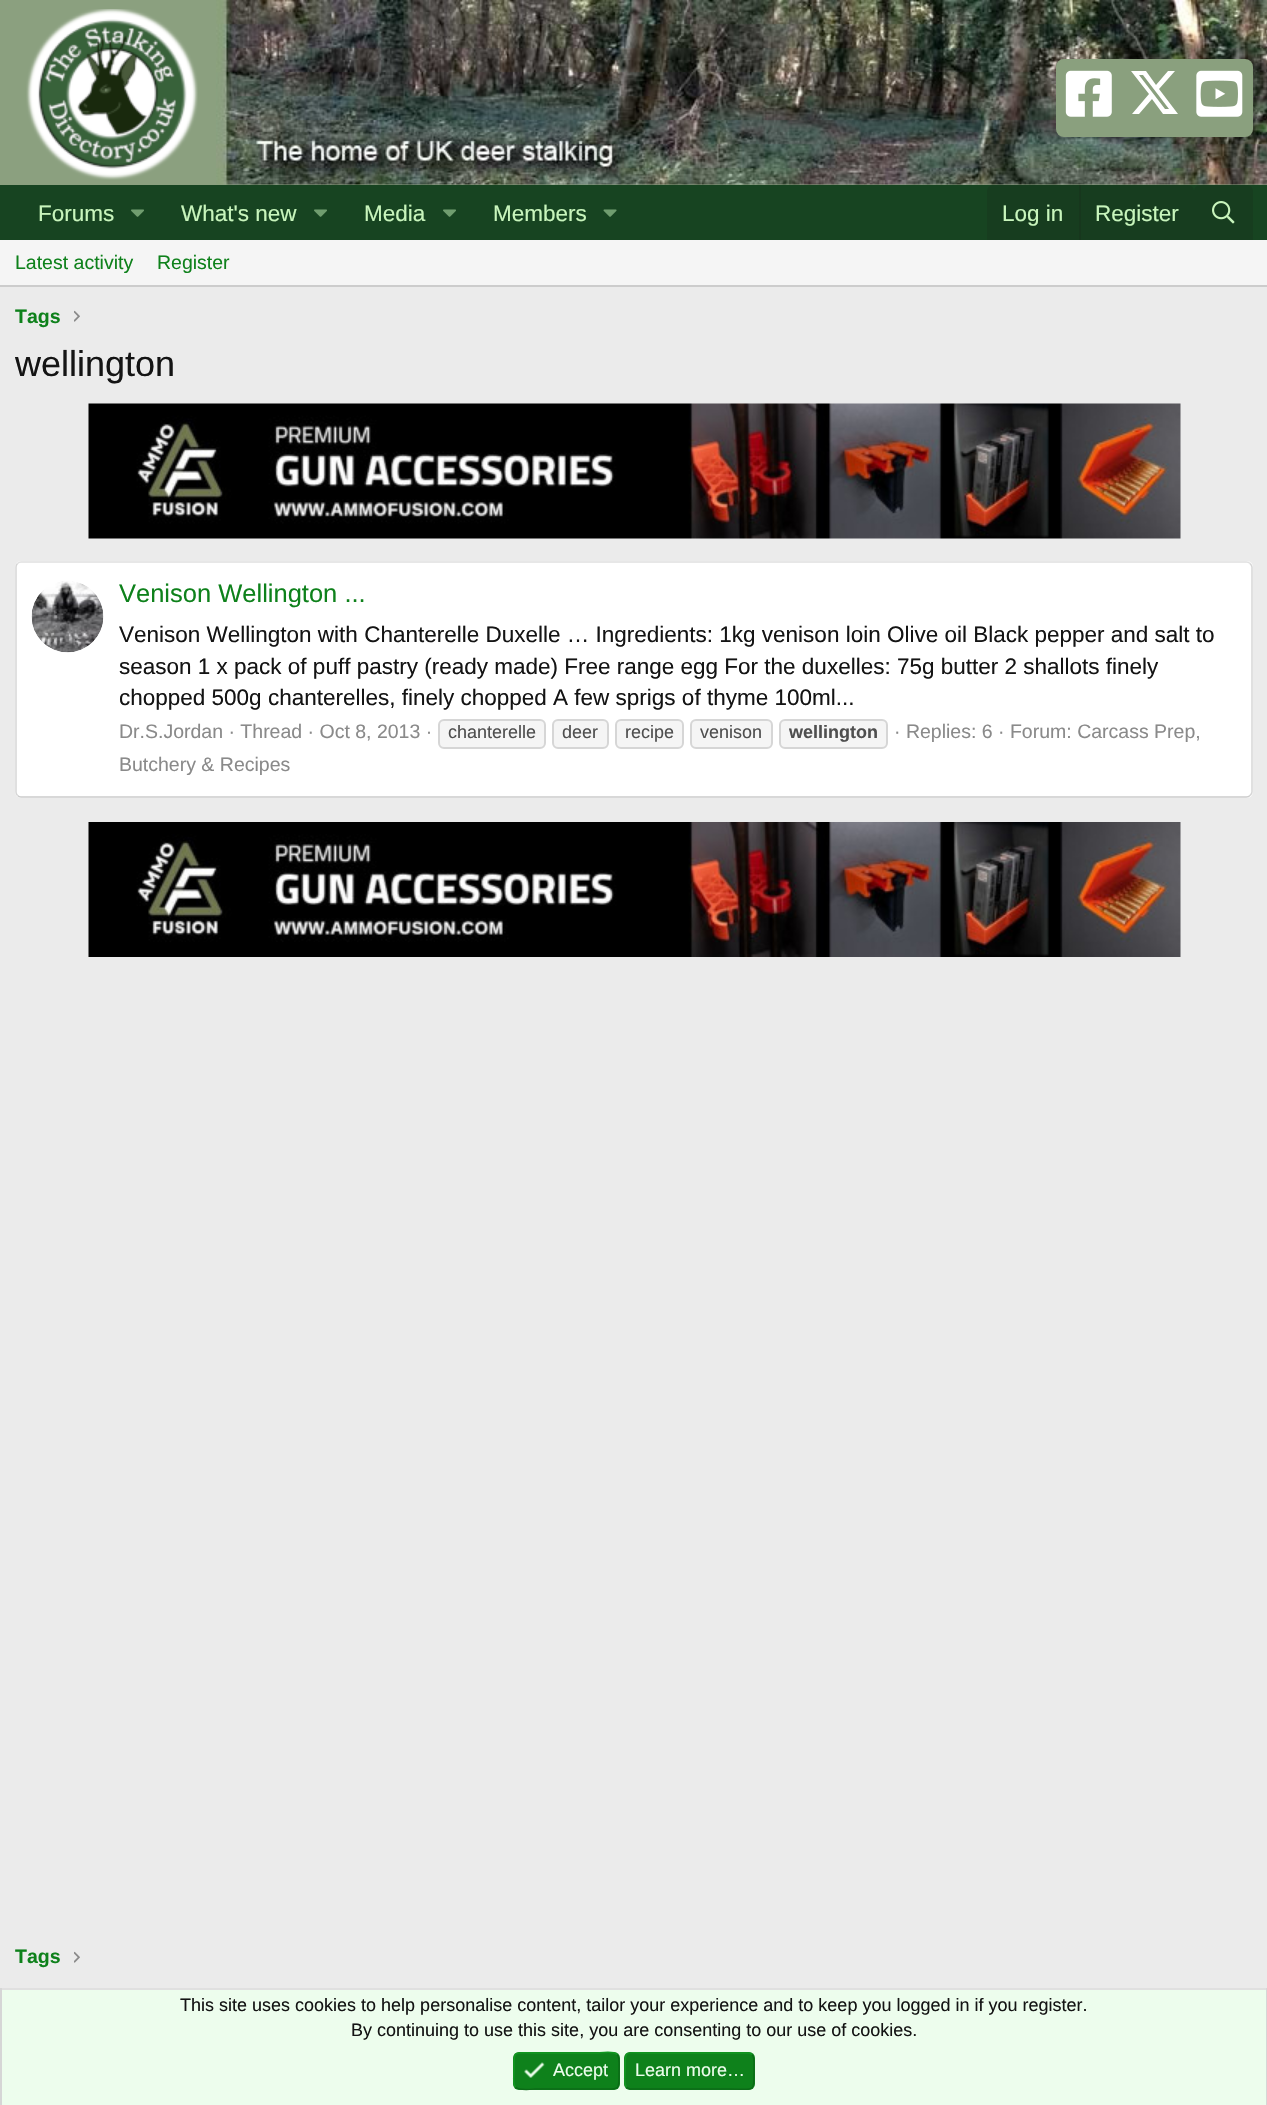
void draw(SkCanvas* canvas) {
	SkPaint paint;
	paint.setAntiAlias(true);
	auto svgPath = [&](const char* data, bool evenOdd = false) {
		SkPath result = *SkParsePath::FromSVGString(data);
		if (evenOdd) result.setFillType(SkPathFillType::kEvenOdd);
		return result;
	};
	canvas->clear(0xffebebeb);
	paint.setColor(0xff8ba07f);
	canvas->drawRect(SkRect::MakeXYWH(0, 0, 1267, 185), paint);
	canvas->drawImageRect(SkImages::DeferredFromEncodedData(SkData::MakeFromFileName("img1.png")), SkRect::MakeXYWH(216, 0, 1051, 185), SkSamplingOptions());
	canvas->drawImageRect(SkImages::DeferredFromEncodedData(SkData::MakeFromFileName("img2.png")), SkRect::MakeXYWH(26, 9, 172, 171), SkSamplingOptions());
	paint.setColor(0xff8aa07e);
	canvas->drawRoundRect(SkRect::MakeXYWH(1056, 59, 197, 78), 8, 8, paint);
	canvas->drawImageRect(SkImages::DeferredFromEncodedData(SkData::MakeFromFileName("img3.png")), SkRect::MakeXYWH(1065, 70, 47, 47), SkSamplingOptions());
	paint.setColor(0xffffffff);
	canvas->drawPath(svgPath("M1168 71H1175L1159 89L1178 114H1163L1152 99L1139 114H1132L1149 94L1131 71H1146L1156 85ZM1165 109H1169L1143 75H1139Z"), paint);
	canvas->drawImageRect(SkImages::DeferredFromEncodedData(SkData::MakeFromFileName("img4.png")), SkRect::MakeXYWH(1196, 70, 47, 47), SkSamplingOptions());
	paint.setColor(0xff174421);
	canvas->drawRect(SkRect::MakeXYWH(0, 185, 1267, 55), paint);
	SkFont f1(fontMgr->matchFamilyStyle("Liberation Sans", SkFontStyle::Normal()), 22.5);
	f1.setSubpixel(true);
	paint.setColor(0xffc8f5bc);
	canvas->drawString("Forums", 38, 221, f1, paint);
	canvas->drawImageRect(SkImages::DeferredFromEncodedData(SkData::MakeFromFileName("img5.png")), SkRect::MakeXYWH(131, 209, 13, 8), SkSamplingOptions());
	canvas->drawString("What's new", 181, 221, f1, paint);
	canvas->drawImageRect(SkImages::DeferredFromEncodedData(SkData::MakeFromFileName("img5.png")), SkRect::MakeXYWH(314, 209, 13, 8), SkSamplingOptions());
	canvas->drawString("Media", 364, 221, f1, paint);
	canvas->drawImageRect(SkImages::DeferredFromEncodedData(SkData::MakeFromFileName("img5.png")), SkRect::MakeXYWH(443, 209, 13, 8), SkSamplingOptions());
	canvas->drawString("Members", 493, 221, f1, paint);
	canvas->drawImageRect(SkImages::DeferredFromEncodedData(SkData::MakeFromFileName("img6.png")), SkRect::MakeXYWH(603, 209, 14, 8), SkSamplingOptions());
	paint.setColor(0xff173d1f);
	canvas->drawPath(svgPath("M993 185H1188C1191.5 185 1194 187.5 1194 191V240H987V191C987 187.5 989.5 185 993 185Z"), paint);
	paint.setColor(0xffc8f5bc);
	canvas->drawString("Log in", 1002, 221, f1, paint);
	paint.setColor(0xff17371d);
	canvas->drawRect(SkRect::MakeXYWH(1079, 185, 2, 55), paint);
	paint.setColor(0xffc8f5bc);
	canvas->drawString("Register", 1095, 221, f1, paint);
	paint.setColor(0xff173d1f);
	canvas->drawPath(svgPath("M1200 185H1247C1250.5 185 1253 187.5 1253 191V240H1194V191C1194 187.5 1196.5 185 1200 185Z"), paint);
	canvas->drawImageRect(SkImages::DeferredFromEncodedData(SkData::MakeFromFileName("img7.png")), SkRect::MakeXYWH(1212, 201, 23, 23), SkSamplingOptions());
	paint.setColor(0xfff5f5f5);
	canvas->drawRect(SkRect::MakeXYWH(0, 240, 1267, 45), paint);
	paint.setColor(0xffcccccc);
	canvas->drawRect(SkRect::MakeXYWH(0, 285, 1267, 2), paint);
	SkFont f2(fontMgr->matchFamilyStyle("Liberation Sans", SkFontStyle::Normal()), 19.5);
	f2.setSubpixel(true);
	paint.setColor(0xff0e811b);
	canvas->drawString("Latest activity", 15, 269, f2, paint);
	canvas->drawString("Register", 157, 269, f2, paint);
	SkFont f3(fontMgr->matchFamilyStyle("Liberation Sans", SkFontStyle::Bold()), 19.5);
	f3.setSubpixel(true);
	canvas->drawString("Tags", 15, 323, f3, paint);
	canvas->drawImageRect(SkImages::DeferredFromEncodedData(SkData::MakeFromFileName("img8.png")), SkRect::MakeXYWH(74, 310, 6, 12), SkSamplingOptions());
	SkFont f4(fontMgr->matchFamilyStyle("Liberation Sans", SkFontStyle::Normal()), 36);
	f4.setSubpixel(true);
	paint.setColor(0xff141414);
	canvas->drawString("wellington", 15, 376, f4, paint);
	canvas->drawImageRect(SkImages::DeferredFromEncodedData(SkData::MakeFromFileName("img9.png")), SkRect::MakeXYWH(88, 403, 1093, 136), SkSamplingOptions());
	paint.setColor(0xffffffff);
	canvas->drawRoundRect(SkRect::MakeXYWH(15, 561, 1238, 237), 6, 6, paint);
	paint.setStroke(true);
	paint.setStrokeWidth(1.5);
	paint.setColor(0xffe0e0e0);
	canvas->drawPath(svgPath("M17.5 563.5C18.5 562.5 19.5 562 21 562H1246.5C1248 562 1249 562.5 1250 563.5"), paint);
	paint.setColor(0xffd6d6d6);
	canvas->drawPath(svgPath("M1250 563.5C1251 564.5 1252 565.5 1252 567V792C1252 793.5 1251 794.5 1250 795.5"), paint);
	paint.setColor(0xffcccccc);
	canvas->drawPath(svgPath("M1250 795.5C1249 796.5 1248 797 1246.5 797H21C19.5 797 18.5 796.5 17.5 795.5"), paint);
	paint.setColor(0xffd6d6d6);
	canvas->drawPath(svgPath("M17.5 795.5C16.5 794.5 16 793.5 16 792V567C16 565.5 16.5 564.5 17.5 563.5"), paint);
	canvas->drawImageRect(SkImages::DeferredFromEncodedData(SkData::MakeFromFileName("img10.png")), SkRect::MakeXYWH(31, 581, 73, 72), SkSamplingOptions());
	SkFont f5(fontMgr->matchFamilyStyle("Liberation Sans", SkFontStyle::Normal()), 25.5);
	f5.setSubpixel(true);
	paint.setStroke(false);
	paint.setColor(0xff0e811b);
	canvas->drawString("Venison Wellington ...", 119, 602, f5, paint);
	paint.setColor(0xff141414);
	canvas->drawString("Venison Wellington with Chanterelle Duxelle … Ingredients: 1kg venison loin Olive oil Black pepper and salt to", 119, 642, f1, paint);
	canvas->drawString("season 1 x pack of puff pastry (ready made) Free range egg For the duxelles: 75g butter 2 shallots finely", 119, 674, f1, paint);
	canvas->drawString("chopped 500g chanterelles, finely chopped A few sprigs of thyme 100ml...", 119, 705, f1, paint);
	paint.setColor(0xff8a8a8a);
	canvas->drawString("Dr.S.Jordan · Thread · Oct 8, 2013 ·", 119, 738, f2, paint);
	paint.setColor(0xfff5f5f5);
	canvas->drawRoundRect(SkRect::MakeXYWH(439, 720, 106, 28), 5, 5, paint);
	paint.setStroke(true);
	paint.setStrokeWidth(2);
	paint.setColor(0xffd6d6d6);
	canvas->drawRoundRect(SkRect::MakeXYWH(439, 720, 106, 28), 5, 5, paint);
	SkFont f6(fontMgr->matchFamilyStyle("Liberation Sans", SkFontStyle::Normal()), 18);
	f6.setSubpixel(true);
	paint.setStroke(false);
	paint.setColor(0xff4f4f4f);
	canvas->drawString("chanterelle", 448, 738, f6, paint);
	paint.setColor(0xfff5f5f5);
	canvas->drawRoundRect(SkRect::MakeXYWH(553, 720, 55, 28), 5, 5, paint);
	paint.setStroke(true);
	paint.setColor(0xffd6d6d6);
	canvas->drawRoundRect(SkRect::MakeXYWH(553, 720, 55, 28), 5, 5, paint);
	paint.setStroke(false);
	paint.setColor(0xff4f4f4f);
	canvas->drawString("deer", 562, 738, f6, paint);
	paint.setColor(0xfff5f5f5);
	canvas->drawRoundRect(SkRect::MakeXYWH(616, 720, 67, 28), 5, 5, paint);
	paint.setStroke(true);
	paint.setColor(0xffd6d6d6);
	canvas->drawRoundRect(SkRect::MakeXYWH(616, 720, 67, 28), 5, 5, paint);
	paint.setStroke(false);
	paint.setColor(0xff4f4f4f);
	canvas->drawString("recipe", 625, 738, f6, paint);
	paint.setColor(0xfff5f5f5);
	canvas->drawRoundRect(SkRect::MakeXYWH(691, 720, 81, 28), 5, 5, paint);
	paint.setStroke(true);
	paint.setColor(0xffd6d6d6);
	canvas->drawRoundRect(SkRect::MakeXYWH(691, 720, 81, 28), 5, 5, paint);
	paint.setStroke(false);
	paint.setColor(0xff4f4f4f);
	canvas->drawString("venison", 700, 738, f6, paint);
	paint.setColor(0xfff5f5f5);
	canvas->drawRoundRect(SkRect::MakeXYWH(780, 720, 107, 28), 5, 5, paint);
	paint.setStroke(true);
	paint.setColor(0xffd6d6d6);
	canvas->drawRoundRect(SkRect::MakeXYWH(780, 720, 107, 28), 5, 5, paint);
	SkFont f7(fontMgr->matchFamilyStyle("Liberation Sans", SkFontStyle::Bold()), 18);
	f7.setSubpixel(true);
	paint.setStroke(false);
	paint.setColor(0xff4f4f4f);
	canvas->drawString("wellington", 789, 738, f7, paint);
	paint.setColor(0xff8a8a8a);
	canvas->drawString("· Replies: 6 · Forum: Carcass Prep,", 894, 738, f2, paint);
	canvas->drawString("Butchery & Recipes", 119, 771, f2, paint);
	canvas->drawImageRect(SkImages::DeferredFromEncodedData(SkData::MakeFromFileName("img11.png")), SkRect::MakeXYWH(88, 822, 1093, 135), SkSamplingOptions());
	paint.setColor(0xff0e811b);
	canvas->drawString("Tags", 15, 1963, f3, paint);
	canvas->drawImageRect(SkImages::DeferredFromEncodedData(SkData::MakeFromFileName("img8.png")), SkRect::MakeXYWH(74, 1951, 6, 12), SkSamplingOptions());
	paint.setColor(0xffedfded);
	canvas->drawRect(SkRect::MakeXYWH(2, 1990, 1264, 115), paint);
	paint.setColor(0xffe0e0e0);
	canvas->drawRect(SkRect::MakeXYWH(0, 1988, 1267, 2), paint);
	paint.setColor(0xffd6d6d6);
	canvas->drawRect(SkRect::MakeXYWH(1266, 1988, 1, 117), paint);
	canvas->drawRect(SkRect::MakeXYWH(0, 1988, 2, 117), paint);
	paint.setColor(0xff141414);
	canvas->drawString("This site uses cookies to help personalise content, tailor your experience and to keep you logged in if you register.", 180, 2011, f6, paint);
	canvas->drawString("By continuing to use this site, you are consenting to our use of cookies.", 351, 2036, f6, paint);
	paint.setColor(0xff0e811b);
	canvas->drawRoundRect(SkRect::MakeXYWH(513, 2052, 107, 38), 6, 6, paint);
	paint.setStroke(true);
	paint.setStrokeWidth(1.5);
	paint.setColor(0xff0b6a16);
	canvas->drawPath(svgPath("M617 2054.5C620 2057 619 2067 619 2071C619 2092 620.5 2089 598 2089H535C533 2089 519 2091 515.5 2087"), paint);
	paint.setColor(0xff109820);
	canvas->drawPath(svgPath("M515.5 2087C512.5 2084.5 514 2074.5 514 2071C514 2049.5 512 2053 535 2053H598C599.5 2053 613.5 2050.5 617 2054.5"), paint);
	canvas->drawImageRect(SkImages::DeferredFromEncodedData(SkData::MakeFromFileName("img12.png")), SkRect::MakeXYWH(524, 2062, 21, 16), SkSamplingOptions());
	paint.setStroke(false);
	paint.setColor(0xffedfded);
	canvas->drawString("Accept", 553, 2076, f6, paint);
	paint.setColor(0xff0e811b);
	canvas->drawRoundRect(SkRect::MakeXYWH(624, 2052, 131, 38), 6, 6, paint);
	paint.setStroke(true);
	paint.setColor(0xff0b6a16);
	canvas->drawPath(svgPath("M752 2054.5C755 2057 754 2067 754 2071C754 2093.5 755 2089 729 2089H630C628.5 2088.5 627.5 2088 626.5 2087"), paint);
	paint.setColor(0xff109820);
	canvas->drawPath(svgPath("M626.5 2087C623.5 2084.5 625 2074.5 625 2071C625 2048 623.5 2053 650 2053H748.5C750 2053 751 2053.5 752 2054.5"), paint);
	paint.setStroke(false);
	paint.setColor(0xffedfded);
	canvas->drawString("Learn more…", 635, 2076, f6, paint);
}
